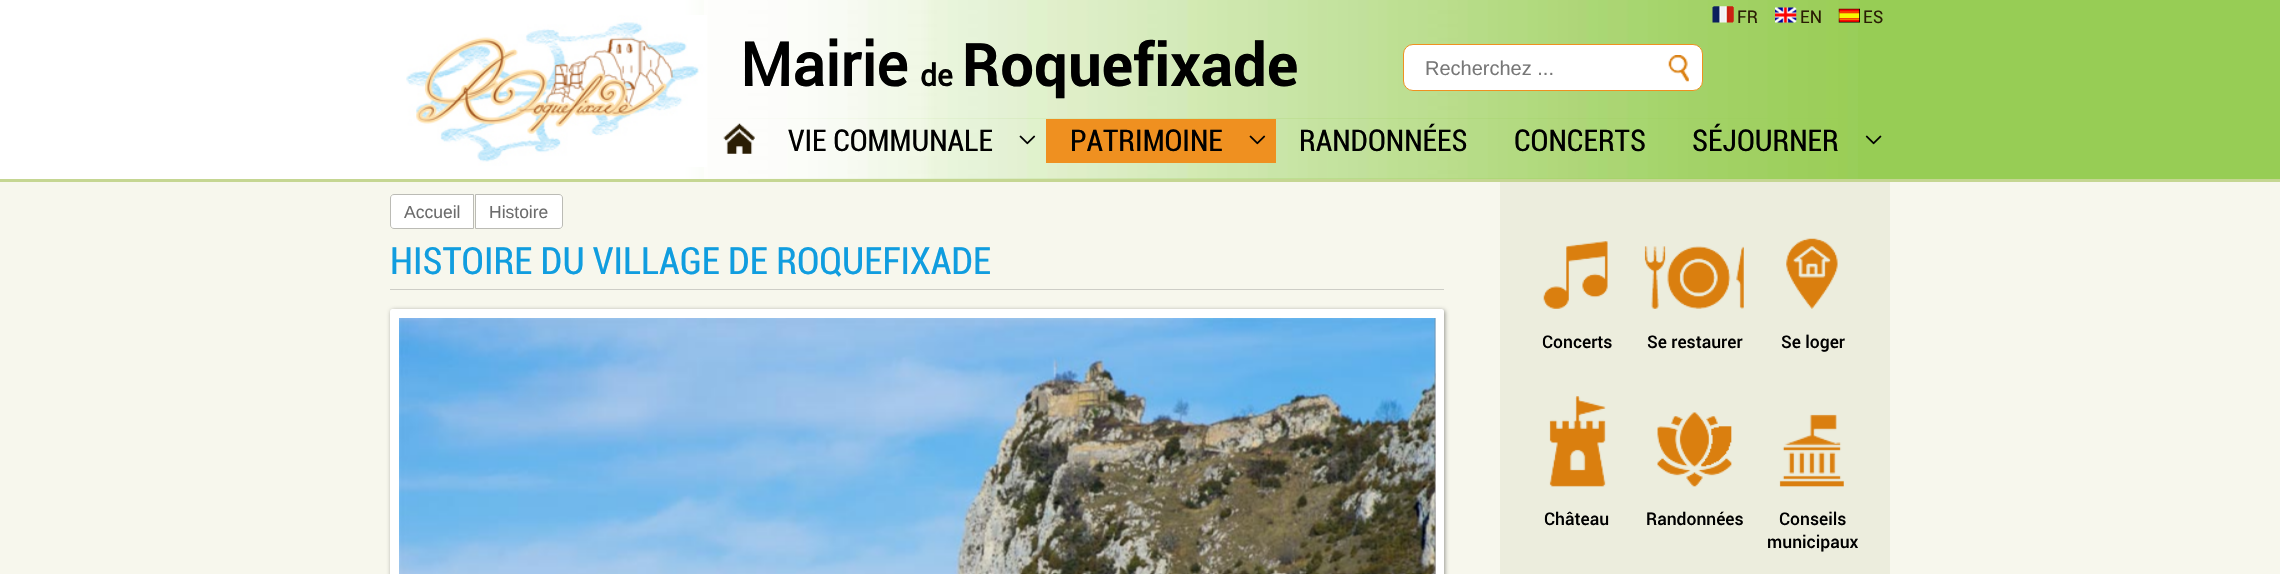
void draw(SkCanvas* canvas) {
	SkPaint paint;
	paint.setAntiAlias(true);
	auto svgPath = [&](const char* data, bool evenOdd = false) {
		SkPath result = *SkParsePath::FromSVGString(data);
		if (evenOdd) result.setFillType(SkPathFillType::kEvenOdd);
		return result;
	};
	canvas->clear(0xfff7f7ed);
	{
		const SkColor colors[] = {0xffffffff, 0xff97cd55, 0xff97cd55};
		const float stops[] = {0.3, 0.5, 1};
		const SkPoint ends[] = {{0, 91}, {2280, 91}};
		paint.setShader(SkGradientShader::MakeLinear(ends, colors, stops, 3, SkTileMode::kClamp));
		paint.setAlpha(255);
	}
	canvas->drawRect(SkRect::MakeXYWH(0, 0, 2280, 179), paint);
	canvas->drawImageRect(SkImages::DeferredFromEncodedData(SkData::MakeFromFileName("img1.png")), SkRect::MakeXYWH(704, 0, 1154, 119), SkSamplingOptions());
	canvas->drawImageRect(SkImages::DeferredFromEncodedData(SkData::MakeFromFileName("img7.png")), SkRect::MakeXYWH(704, 118, 1154, 61), SkSamplingOptions());
	canvas->drawImageRect(SkImages::DeferredFromEncodedData(SkData::MakeFromFileName("img2.png")), SkRect::MakeXYWH(406, 15, 301, 152), SkSamplingOptions());
	SkFont f1(fontMgr->matchFamilyStyle("Roboto", SkFontStyle::Bold()), 60);
	f1.setSubpixel(true);
	paint.setShader(nullptr);
	paint.setColor(0xff000000);
	canvas->drawString("Mairie", 740, 86, f1, paint);
	SkFont f2(fontMgr->matchFamilyStyle("Roboto", SkFontStyle::Bold()), 30);
	f2.setSubpixel(true);
	canvas->drawString("de", 920, 86, f2, paint);
	SkFont f3(fontMgr->matchFamilyStyle("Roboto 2", SkFontStyle::Bold()), 60);
	f3.setSubpixel(true);
	canvas->drawString("Roquefixade", 962, 86, f3, paint);
	canvas->drawImageRect(SkImages::DeferredFromEncodedData(SkData::MakeFromFileName("img3.png")), SkRect::MakeXYWH(1712, 6, 22, 17), SkSamplingOptions());
	SkFont f4(fontMgr->matchFamilyStyle("Roboto 2", SkFontStyle::Normal()), 17.5);
	f4.setSubpixel(true);
	paint.setColor(0xff2a1d04);
	canvas->drawString("FR", 1737, 23, f4, paint);
	canvas->drawImageRect(SkImages::DeferredFromEncodedData(SkData::MakeFromFileName("img4.png")), SkRect::MakeXYWH(1775, 7, 22, 16), SkSamplingOptions());
	canvas->drawString("EN", 1800, 23, f4, paint);
	canvas->drawImageRect(SkImages::DeferredFromEncodedData(SkData::MakeFromFileName("img5.png")), SkRect::MakeXYWH(1838, 8, 22, 15), SkSamplingOptions());
	canvas->drawString("ES", 1863, 23, f4, paint);
	paint.setColor(0xffffffff);
	canvas->drawRoundRect(SkRect::MakeXYWH(1403.5, 44.5, 299, 46), 9.5, 9.5, paint);
	paint.setStroke(true);
	paint.setStrokeWidth(1);
	paint.setColor(0xffef9020);
	canvas->drawRoundRect(SkRect::MakeXYWH(1403.5, 44.5, 299, 46), 9.5, 9.5, paint);
	SkFont f5(fontMgr->matchFamilyStyle("Liberation Sans", SkFontStyle::Normal()), 20);
	f5.setSubpixel(true);
	paint.setStroke(false);
	paint.setColor(0xff777777);
	canvas->drawString("Recherchez ...", 1425, 75, f5, paint);
	canvas->drawImageRect(SkImages::DeferredFromEncodedData(SkData::MakeFromFileName("img6.png")), SkRect::MakeXYWH(1668, 55, 21, 27), SkSamplingOptions());
	paint.setColor(0xffc5d692);
	canvas->drawRect(SkRect::MakeXYWH(0, 179, 2280, 3), paint);
	canvas->drawImageRect(SkImages::DeferredFromEncodedData(SkData::MakeFromFileName("img8.png")), SkRect::MakeXYWH(723, 123, 32, 31), SkSamplingOptions());
	SkFont f6(fontMgr->matchFamilyStyle("Roboto", SkFontStyle::Normal()), 30);
	f6.setSubpixel(true);
	paint.setColor(0xff000000);
	canvas->drawString("VIE COMMUNALE", 788, 151, f6, paint);
	canvas->drawImageRect(SkImages::DeferredFromEncodedData(SkData::MakeFromFileName("img9.png")), SkRect::MakeXYWH(1019, 135, 17, 10), SkSamplingOptions());
	paint.setColor(0xffef9020);
	canvas->drawRect(SkRect::MakeXYWH(1046, 119, 230, 44), paint);
	paint.setColor(0xff000000);
	canvas->drawString("PATRIMOINE", 1070, 151, f6, paint);
	canvas->drawImageRect(SkImages::DeferredFromEncodedData(SkData::MakeFromFileName("img10.png")), SkRect::MakeXYWH(1249, 135, 17, 10), SkSamplingOptions());
	canvas->drawString("RANDONNÉES", 1299, 151, f6, paint);
	canvas->drawString("CONCERTS", 1514, 151, f6, paint);
	canvas->drawString("SÉJOURNER", 1692, 151, f6, paint);
	canvas->drawImageRect(SkImages::DeferredFromEncodedData(SkData::MakeFromFileName("img11.png")), SkRect::MakeXYWH(1865, 135, 17, 10), SkSamplingOptions());
	paint.setColor(0xffffffff);
	canvas->drawPath(svgPath("M394 194.5H473.5V228.5H394C392 228.5 390.5 227 390.5 225V198C390.5 196 392 194.5 394 194.5Z"), paint);
	paint.setStroke(true);
	paint.setColor(0xffbbbbb5);
	canvas->drawPath(svgPath("M394 194.5H473.5V228.5H394C392 228.5 390.5 227 390.5 225V198C390.5 196 392 194.5 394 194.5Z"), paint);
	SkFont f7(fontMgr->matchFamilyStyle("Liberation Sans", SkFontStyle::Normal()), 17.5);
	f7.setSubpixel(true);
	paint.setStroke(false);
	paint.setColor(0xff6c6c6c);
	canvas->drawString("Accueil", 404, 218, f7, paint);
	paint.setColor(0xffffffff);
	canvas->drawPath(svgPath("M475.5 194.5H559C561 194.5 562.5 196 562.5 198V225C562.5 227 561 228.5 559 228.5H475.5Z"), paint);
	paint.setStroke(true);
	paint.setColor(0xffbbbbb5);
	canvas->drawPath(svgPath("M475.5 194.5H559C561 194.5 562.5 196 562.5 198V225C562.5 227 561 228.5 559 228.5H475.5Z"), paint);
	paint.setStroke(false);
	paint.setColor(0xff6c6c6c);
	canvas->drawString("Histoire", 489, 218, f7, paint);
	paint.setColor(0xffcdcdc6);
	canvas->drawRect(SkRect::MakeXYWH(390, 289, 1054, 1), paint);
	SkFont f8(fontMgr->matchFamilyStyle("Roboto", SkFontStyle::Normal()), 37.5);
	f8.setSubpixel(true);
	paint.setColor(0xff109ddf);
	canvas->drawString("HISTOIRE DU VILLAGE DE ROQUEFIXADE", 390, 274, f8, paint);
	paint.setColor(0x66000000);
	paint.setMaskFilter(SkMaskFilter::MakeBlur(kNormal_SkBlurStyle, 2));
	canvas->drawRoundRect(SkRect::MakeXYWH(391, 310, 1054, 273), 2.5, 2.5, paint);
	paint.setMaskFilter(nullptr);
	paint.setColor(0xffffffff);
	canvas->drawRoundRect(SkRect::MakeXYWH(390, 309, 1054, 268), 2.5, 2.5, paint);
	canvas->drawImageRect(SkImages::DeferredFromEncodedData(SkData::MakeFromFileName("img13.png")), SkRect::MakeXYWH(1434, 318, 2, 256), SkSamplingOptions());
	canvas->drawImageRect(SkImages::DeferredFromEncodedData(SkData::MakeFromFileName("img14.png")), SkRect::MakeXYWH(1434, 318, 2, 256), SkSamplingOptions());
	canvas->drawImageRect(SkImages::DeferredFromEncodedData(SkData::MakeFromFileName("img12.png")), SkRect::MakeXYWH(399, 318, 1037, 256), SkSamplingOptions());
	paint.setColor(0xffeceddd);
	canvas->drawRect(SkRect::MakeXYWH(1500, 182, 390, 392), paint);
	canvas->drawImageRect(SkImages::DeferredFromEncodedData(SkData::MakeFromFileName("img15.png")), SkRect::MakeXYWH(1543, 241, 65, 68), SkSamplingOptions());
	SkFont f9(fontMgr->matchFamilyStyle("Roboto", SkFontStyle(500, SkFontStyle::kNormal_Width, SkFontStyle::kUpright_Slant)), 17.5);
	f9.setSubpixel(true);
	paint.setColor(0xff000000);
	canvas->drawString("Concerts", 1542, 348, f9, paint);
	canvas->drawImageRect(SkImages::DeferredFromEncodedData(SkData::MakeFromFileName("img16.png")), SkRect::MakeXYWH(1644, 246, 100, 63), SkSamplingOptions());
	canvas->drawString("Se restaurer", 1647, 348, f9, paint);
	canvas->drawImageRect(SkImages::DeferredFromEncodedData(SkData::MakeFromFileName("img17.png")), SkRect::MakeXYWH(1786, 238, 52, 71), SkSamplingOptions());
	canvas->drawString("Se loger", 1781, 348, f9, paint);
	canvas->drawImageRect(SkImages::DeferredFromEncodedData(SkData::MakeFromFileName("img18.png")), SkRect::MakeXYWH(1549, 396, 57, 91), SkSamplingOptions());
	canvas->drawString("Château", 1544, 525, f9, paint);
	canvas->drawImageRect(SkImages::DeferredFromEncodedData(SkData::MakeFromFileName("img19.png")), SkRect::MakeXYWH(1657, 412, 75, 75), SkSamplingOptions());
	canvas->drawString("Randonnées", 1646, 525, f9, paint);
	canvas->drawImageRect(SkImages::DeferredFromEncodedData(SkData::MakeFromFileName("img20.png")), SkRect::MakeXYWH(1779, 414, 65, 73), SkSamplingOptions());
	canvas->drawString("Conseils", 1779, 525, f9, paint);
	canvas->drawString("municipaux", 1767, 548, f9, paint);
}
